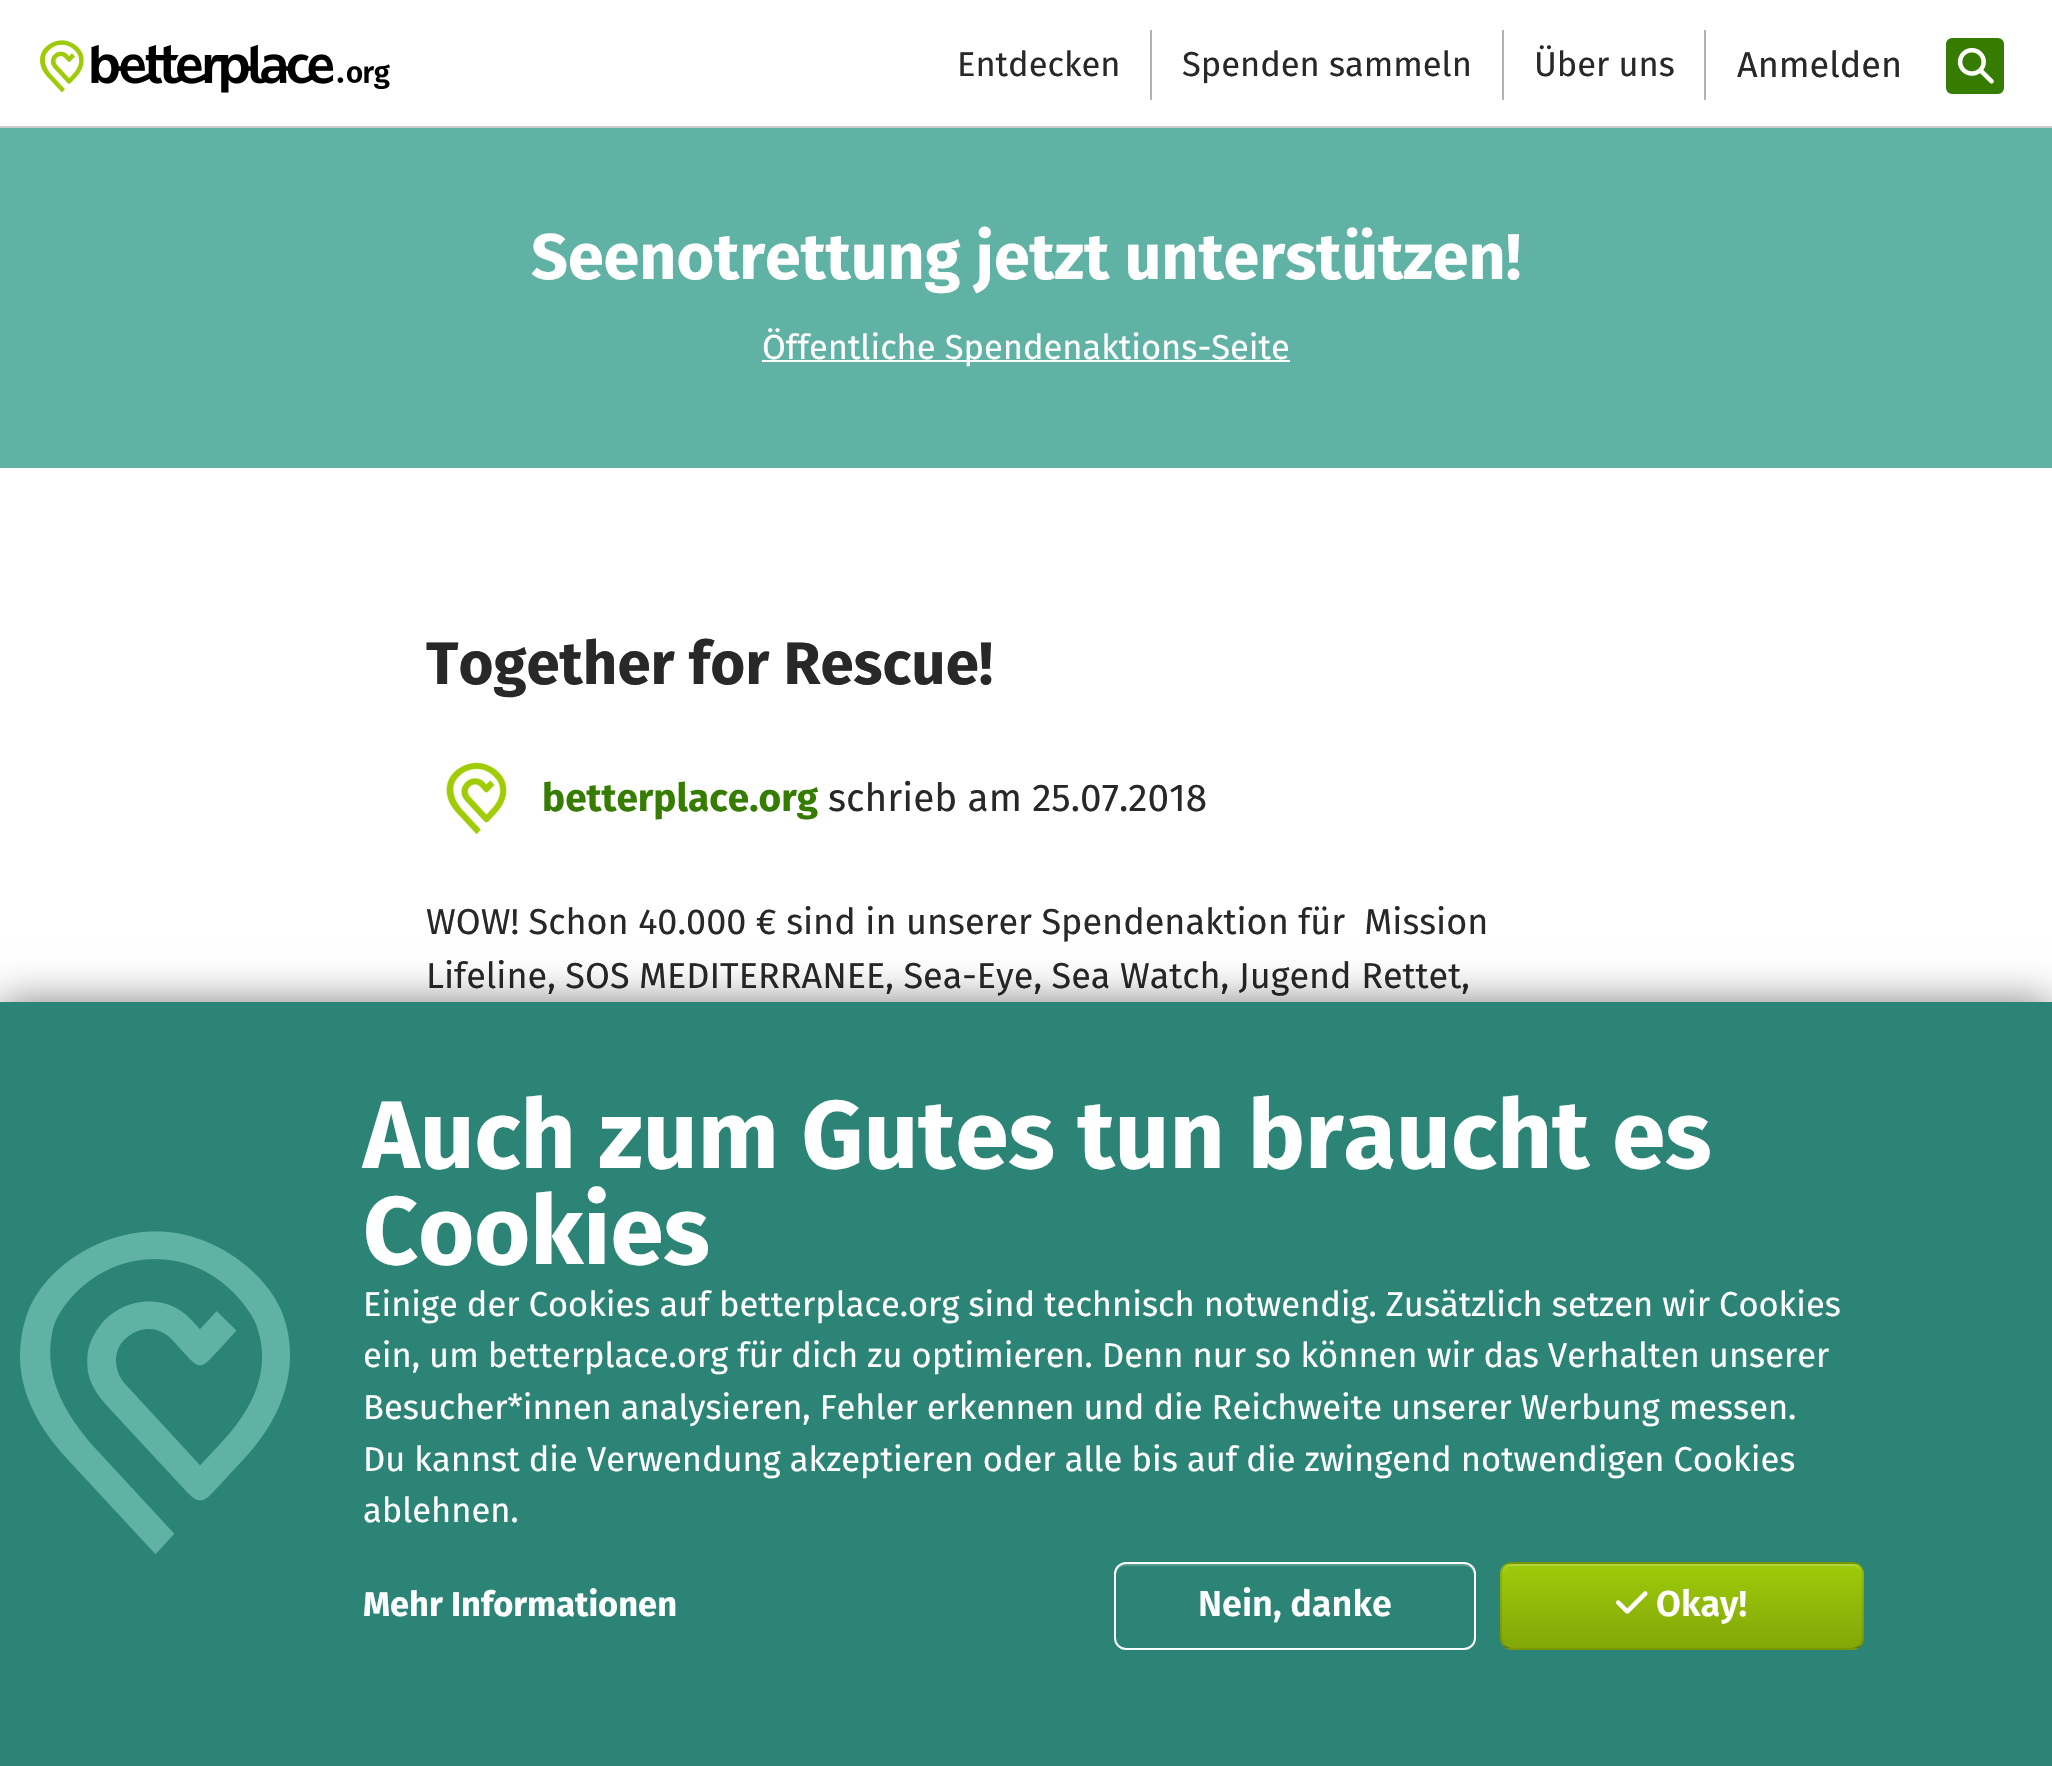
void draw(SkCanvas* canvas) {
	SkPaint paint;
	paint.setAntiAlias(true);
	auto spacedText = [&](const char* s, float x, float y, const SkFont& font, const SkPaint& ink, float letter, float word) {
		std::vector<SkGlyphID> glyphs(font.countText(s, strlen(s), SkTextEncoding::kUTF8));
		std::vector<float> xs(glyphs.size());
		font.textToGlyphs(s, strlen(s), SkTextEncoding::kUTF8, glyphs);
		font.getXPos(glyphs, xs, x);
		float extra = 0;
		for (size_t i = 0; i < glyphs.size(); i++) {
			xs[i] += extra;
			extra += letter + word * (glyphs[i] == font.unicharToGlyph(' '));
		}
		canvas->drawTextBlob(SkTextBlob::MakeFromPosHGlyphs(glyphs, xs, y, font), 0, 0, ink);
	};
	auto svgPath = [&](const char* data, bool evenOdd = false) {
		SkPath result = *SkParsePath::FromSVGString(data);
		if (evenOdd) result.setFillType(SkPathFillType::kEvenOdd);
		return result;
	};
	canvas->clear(0xffffffff);
	paint.setColor(0xffcccccc);
	canvas->drawRect(SkRect::MakeXYWH(0, 126, 2052, 2), paint);
	canvas->drawImageRect(SkImages::DeferredFromEncodedData(SkData::MakeFromFileName("img1.png")), SkRect::MakeXYWH(40, 40, 350, 53), SkSamplingOptions());
	SkFont f1(fontMgr->matchFamilyStyle("Fira Sans", SkFontStyle::Normal()), 34.45);
	f1.setSubpixel(true);
	paint.setColor(0xff282828);
	canvas->drawString("Entdecken", 957, 76, f1, paint);
	paint.setColor(0xffb3b3b3);
	canvas->drawRect(SkRect::MakeXYWH(1150, 30, 2, 70), paint);
	paint.setColor(0xff282828);
	canvas->drawString("Spenden sammeln", 1182, 76, f1, paint);
	paint.setColor(0xffb3b3b3);
	canvas->drawRect(SkRect::MakeXYWH(1502, 30, 2, 70), paint);
	paint.setColor(0xff282828);
	canvas->drawString("Über uns", 1534, 76, f1, paint);
	paint.setColor(0xffb3b3b3);
	canvas->drawRect(SkRect::MakeXYWH(1704, 30, 2, 70), paint);
	SkFont f2(fontMgr->matchFamilyStyle("Fira Sans", SkFontStyle::Normal()), 36);
	f2.setSubpixel(true);
	paint.setColor(0xff282828);
	canvas->drawString("Anmelden", 1737, 77, f2, paint);
	paint.setColor(0xff357c00);
	canvas->drawRoundRect(SkRect::MakeXYWH(1947, 39, 56, 54), 5, 5, paint);
	paint.setStroke(true);
	paint.setStrokeWidth(2);
	canvas->drawRoundRect(SkRect::MakeXYWH(1947, 39, 56, 54), 5, 5, paint);
	canvas->drawImageRect(SkImages::DeferredFromEncodedData(SkData::MakeFromFileName("img2.png")), SkRect::MakeXYWH(1957, 47, 37, 37), SkSamplingOptions());
	paint.setStroke(false);
	paint.setColor(0xff60b2a4);
	canvas->drawRect(SkRect::MakeXYWH(0, 128, 2052, 340), paint);
	SkFont f3(fontMgr->matchFamilyStyle("Fira Sans", SkFontStyle::Bold()), 64.6);
	f3.setSubpixel(true);
	paint.setColor(0xffffffff);
	canvas->drawString("Seenotrettung jetzt unterstützen!", 531, 279, f3, paint);
	canvas->drawRect(SkRect::MakeXYWH(762, 360, 528, 2), paint);
	canvas->drawString("Öffentliche Spendenaktions-Seite", 762, 359, f1, paint);
	SkFont f4(fontMgr->matchFamilyStyle("Fira Sans", SkFontStyle::Bold()), 60);
	f4.setSubpixel(true);
	paint.setColor(0xff282828);
	canvas->drawString("Together for Rescue!", 426, 684, f4, paint);
	canvas->drawImageRect(SkImages::DeferredFromEncodedData(SkData::MakeFromFileName("img3.png")), SkRect::MakeXYWH(446, 762, 61, 73), SkSamplingOptions());
	SkFont f5(fontMgr->matchFamilyStyle("Fira Sans", SkFontStyle::Bold()), 38.75);
	f5.setSubpixel(true);
	paint.setColor(0xff357c00);
	canvas->drawString("betterplace.org", 542, 811, f5, paint);
	SkFont f6(fontMgr->matchFamilyStyle("Fira Sans", SkFontStyle::Normal()), 38.75);
	f6.setSubpixel(true);
	paint.setColor(0xff282828);
	canvas->drawString("schrieb am 25.07.2018", 828, 811, f6, paint);
	canvas->drawString("WOW! Schon 40.000 € sind in unserer Spendenaktion für  Mission", 426, 934, f2, paint);
	canvas->drawString("Lifeline, SOS MEDITERRANEE, Sea-Eye, Sea Watch, Jugend Rettet,", 426, 988, f2, paint);
	paint.setColor(0x80000000);
	paint.setMaskFilter(SkMaskFilter::MakeBlur(kNormal_SkBlurStyle, 20));
	canvas->drawRect(SkRect::MakeXYWH(0, 1002, 2052, 764), paint);
	paint.setMaskFilter(nullptr);
	paint.setColor(0xff2b8475);
	canvas->drawRect(SkRect::MakeXYWH(0, 1002, 2052, 764), paint);
	canvas->drawImageRect(SkImages::DeferredFromEncodedData(SkData::MakeFromFileName("img4.png")), SkRect::MakeXYWH(20, 1231, 270, 323), SkSamplingOptions());
	SkFont f7(fontMgr->matchFamilyStyle("Fira Sans", SkFontStyle::Bold()), 96);
	f7.setSubpixel(true);
	paint.setColor(0xffffffff);
	canvas->drawString("Auch zum Gutes tun braucht es", 363, 1168, f7, paint);
	canvas->drawString("Cookies", 363, 1264, f7, paint);
	canvas->drawString("Einige der Cookies auf betterplace.org sind technisch notwendig. Zusätzlich setzen wir Cookies", 363, 1316, f1, paint);
	canvas->drawString("ein, um betterplace.org für dich zu optimieren. Denn nur so können wir das Verhalten unserer", 363, 1367, f1, paint);
	spacedText("Besucher*innen analysieren, Fehler erkennen und die Reichweite unserer Werbung messen.", 363, 1419, f1, paint, 0, -0.1);
	canvas->drawString("Du kannst die Verwendung akzeptieren oder alle bis auf die zwingend notwendigen Cookies", 363, 1471, f1, paint);
	canvas->drawString("ablehnen.", 363, 1522, f1, paint);
	SkFont f8(fontMgr->matchFamilyStyle("Fira Sans", SkFontStyle::Bold()), 34.45);
	f8.setSubpixel(true);
	canvas->drawString("Mehr Informationen", 363, 1616, f8, paint);
	paint.setColor(0xff559d91);
	canvas->drawPath(svgPath("M1126 1566H1464C1470 1566 1474 1570 1474 1576C1474 1571 1472 1565 1466 1564H1126C1119 1564 1116 1570 1116 1576C1116 1570 1120 1566 1126 1566Z"), paint);
	paint.setStroke(true);
	paint.setColor(0xffffffff);
	canvas->drawRoundRect(SkRect::MakeXYWH(1115, 1563, 360, 86), 11, 11, paint);
	SkFont f9(fontMgr->matchFamilyStyle("Fira Sans", SkFontStyle(600, SkFontStyle::kNormal_Width, SkFontStyle::kUpright_Slant)), 36);
	f9.setSubpixel(true);
	paint.setStroke(false);
	canvas->drawString("Nein, danke", 1198, 1616, f9, paint);
	canvas->save();
	canvas->clipPath(svgPath("M1512 1562H1852C1858.5 1562 1864 1567.5 1864 1574V1638C1864 1644.5 1858.5 1650 1852 1650H1512C1505.5 1650 1500 1644.5 1500 1638V1574C1500 1567.5 1505.5 1562 1512 1562Z"), true);
	{
		const SkColor colors[] = {0xff9ecb0a, 0xff82a708};
		const float stops[] = {0, 1};
		const SkPoint ends[] = {{1682, 1480}, {1682, 1564}};
		paint.setShader(SkGradientShader::MakeLinear(ends, colors, stops, 2, SkTileMode::kClamp));
		paint.setAlpha(255);
	}
	canvas->drawRect(SkRect::MakeXYWH(1500, 1562, 364, 2), paint);
	{
		const SkColor colors[] = {0xff9ecb0a, 0xff82a708};
		const float stops[] = {0, 1};
		const SkPoint ends[] = {{1682, 1564}, {1682, 1648}};
		paint.setShader(SkGradientShader::MakeLinear(ends, colors, stops, 2, SkTileMode::kClamp));
		paint.setAlpha(255);
	}
	canvas->drawRect(SkRect::MakeXYWH(1500, 1564, 364, 84), paint);
	{
		const SkColor colors[] = {0xff9ecb0a, 0xff82a708};
		const float stops[] = {0, 1};
		const SkPoint ends[] = {{1682, 1648}, {1682, 1732}};
		paint.setShader(SkGradientShader::MakeLinear(ends, colors, stops, 2, SkTileMode::kClamp));
		paint.setAlpha(255);
	}
	canvas->drawRect(SkRect::MakeXYWH(1500, 1648, 364, 2), paint);
	canvas->restore();
	paint.setShader(nullptr);
	paint.setColor(0xffb1d53b);
	canvas->drawPath(svgPath("M1512 1566H1852C1858 1566 1862 1570 1862 1576C1862 1571 1860 1565 1854 1564H1512C1505 1564 1502 1570 1502 1576C1502 1570 1506 1566 1512 1566Z"), paint);
	paint.setStroke(true);
	paint.setColor(0x40000000);
	canvas->drawPath(svgPath("M1860 1646C1857.5 1648 1855 1649 1852 1649H1512C1509 1649 1506.5 1648 1504 1646"), paint);
	paint.setColor(0x1a000000);
	canvas->drawPath(svgPath("M1504 1646C1502 1643.5 1501 1641 1501 1638V1574C1501 1571 1502 1568.5 1504 1566C1506.5 1564 1509 1563 1512 1563H1852C1855 1563 1857.5 1564 1860 1566C1862 1568.5 1863 1571 1863 1574V1638C1863 1641 1862 1643.5 1860 1646"), paint);
	canvas->drawImageRect(SkImages::DeferredFromEncodedData(SkData::MakeFromFileName("img5.png")), SkRect::MakeXYWH(1616, 1591, 32, 23), SkSamplingOptions());
	paint.setStroke(false);
	paint.setColor(0xffffffff);
	canvas->drawString("Okay!", 1656, 1616, f9, paint);
}
